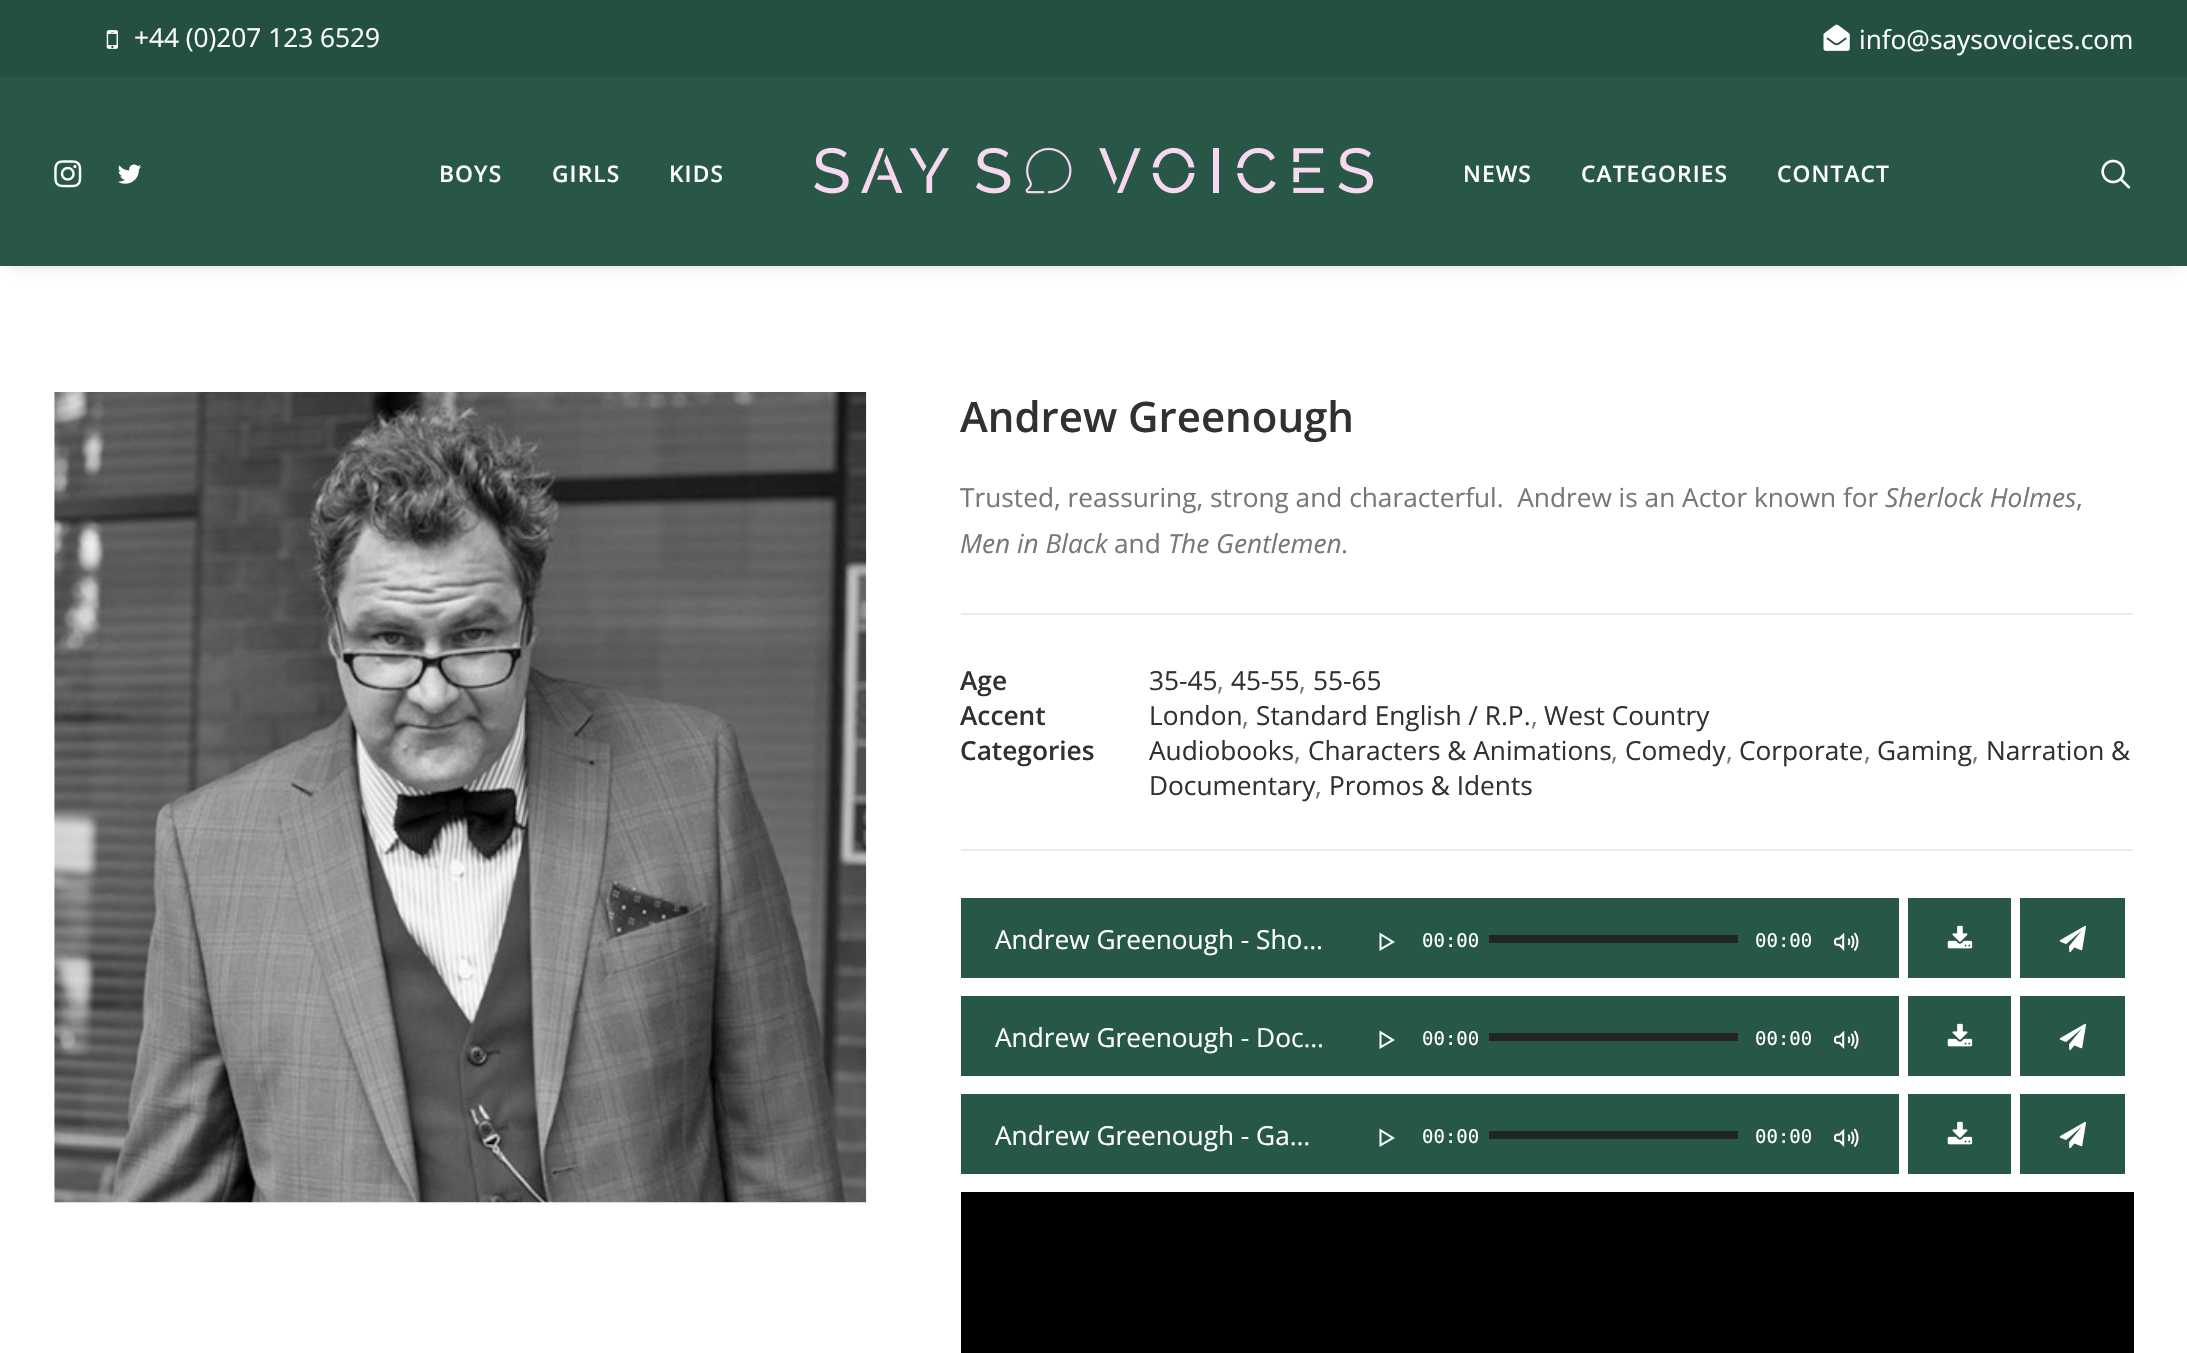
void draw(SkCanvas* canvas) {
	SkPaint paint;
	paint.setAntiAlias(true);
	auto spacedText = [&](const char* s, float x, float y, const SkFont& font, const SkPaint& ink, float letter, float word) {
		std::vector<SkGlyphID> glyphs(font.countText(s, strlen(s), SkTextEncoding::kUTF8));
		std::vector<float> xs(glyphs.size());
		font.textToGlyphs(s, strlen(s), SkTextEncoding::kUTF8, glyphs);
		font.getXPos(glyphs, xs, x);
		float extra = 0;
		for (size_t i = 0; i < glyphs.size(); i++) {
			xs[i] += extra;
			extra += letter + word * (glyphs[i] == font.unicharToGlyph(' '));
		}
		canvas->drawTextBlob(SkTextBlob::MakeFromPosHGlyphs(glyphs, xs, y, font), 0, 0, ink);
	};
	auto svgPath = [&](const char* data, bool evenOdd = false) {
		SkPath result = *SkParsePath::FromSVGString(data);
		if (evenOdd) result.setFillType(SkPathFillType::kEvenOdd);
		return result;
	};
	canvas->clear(0xffffffff);
	paint.setColor(0x99000000);
	paint.setMaskFilter(SkMaskFilter::MakeBlur(kNormal_SkBlurStyle, 9));
	canvas->drawRect(SkRect::MakeXYWH(9, 102, 2170, 154), paint);
	paint.setMaskFilter(nullptr);
	paint.setColor(0xff235041);
	canvas->drawRect(SkRect::MakeXYWH(0, 0, 2187, 77), paint);
	canvas->drawImageRect(SkImages::DeferredFromEncodedData(SkData::MakeFromFileName("img1.png")), SkRect::MakeXYWH(106, 30, 12, 19), SkSamplingOptions());
	SkFont f1(fontMgr->matchFamilyStyle("Open Sans", SkFontStyle::Normal()), 26.25);
	f1.setSubpixel(true);
	paint.setColor(0xffffffff);
	canvas->drawString("+44 (0)207 123 6529", 134, 47, f1, paint);
	canvas->drawImageRect(SkImages::DeferredFromEncodedData(SkData::MakeFromFileName("img2.png")), SkRect::MakeXYWH(1823, 24, 27, 27), SkSamplingOptions());
	canvas->drawString("info@saysovoices.com", 1859, 49, f1, paint);
	paint.setColor(0xff285747);
	canvas->drawRect(SkRect::MakeXYWH(0, 77, 2187, 189), paint);
	canvas->drawImageRect(SkImages::DeferredFromEncodedData(SkData::MakeFromFileName("img3.png")), SkRect::MakeXYWH(54, 160, 28, 28), SkSamplingOptions());
	canvas->drawImageRect(SkImages::DeferredFromEncodedData(SkData::MakeFromFileName("img4.png")), SkRect::MakeXYWH(117, 164, 25, 20), SkSamplingOptions());
	SkFont f2(fontMgr->matchFamilyStyle("Open Sans", SkFontStyle(600, SkFontStyle::kNormal_Width, SkFontStyle::kUpright_Slant)), 22.75);
	f2.setSubpixel(true);
	paint.setColor(0xffffffff);
	spacedText("BOYS", 439, 182, f2, paint, 1.1, 0);
	spacedText("GIRLS", 552, 182, f2, paint, 1.1, 0);
	spacedText("KIDS", 669, 182, f2, paint, 1.1, 0);
	canvas->drawImageRect(SkImages::DeferredFromEncodedData(SkData::MakeFromFileName("img5.png")), SkRect::MakeXYWH(814, 147, 559, 47), SkSamplingOptions());
	spacedText("NEWS", 1463, 182, f2, paint, 1.1, 0);
	spacedText("CATEGORIES", 1581, 182, f2, paint, 1.1, 0);
	spacedText("CONTACT", 1777, 182, f2, paint, 1.1, 0);
	canvas->drawImageRect(SkImages::DeferredFromEncodedData(SkData::MakeFromFileName("img6.png")), SkRect::MakeXYWH(2101, 159, 30, 30), SkSamplingOptions());
	canvas->drawImageRect(SkImages::DeferredFromEncodedData(SkData::MakeFromFileName("img7.png")), SkRect::MakeXYWH(54, 392, 813, 811), SkSamplingOptions());
	SkFont f3(fontMgr->matchFamilyStyle("Open Sans", SkFontStyle(600, SkFontStyle::kNormal_Width, SkFontStyle::kUpright_Slant)), 42);
	f3.setSubpixel(true);
	paint.setColor(0xff303133);
	canvas->drawString("Andrew Greenough", 960, 432, f3, paint);
	paint.setColor(0xff777777);
	canvas->drawString("Trusted, reassuring, strong and characterful.  Andrew is an Actor known for", 960, 507, f1, paint);
	SkFont f4(fontMgr->matchFamilyStyle("Open Sans", SkFontStyle::Italic()), 26.25);
	f4.setSubpixel(true);
	canvas->drawString("Sherlock Holmes", 1885, 507, f4, paint);
	canvas->drawString(",", 2076, 507, f1, paint);
	canvas->drawString("Men in Black", 960, 553, f4, paint);
	canvas->drawString("and", 1114, 553, f1, paint);
	canvas->drawString("The Gentlemen", 1168, 553, f4, paint);
	canvas->drawString(".", 1341, 553, f1, paint);
	paint.setColor(0xffeaeaea);
	canvas->drawRect(SkRect::MakeXYWH(961, 613, 1172, 2), paint);
	SkFont f5(fontMgr->matchFamilyStyle("Open Sans", SkFontStyle(600, SkFontStyle::kNormal_Width, SkFontStyle::kUpright_Slant)), 26.25);
	f5.setSubpixel(true);
	paint.setColor(0xff303133);
	canvas->drawString("Age", 960, 690, f5, paint);
	canvas->drawString("35-45", 1149, 690, f1, paint);
	paint.setColor(0xff777777);
	canvas->drawString(",", 1217, 690, f1, paint);
	paint.setColor(0xff303133);
	canvas->drawString("45-55", 1231, 690, f1, paint);
	paint.setColor(0xff777777);
	canvas->drawString(",", 1299, 690, f1, paint);
	paint.setColor(0xff303133);
	canvas->drawString("55-65", 1313, 690, f1, paint);
	canvas->drawString("Accent", 960, 725, f5, paint);
	canvas->drawString("London", 1149, 725, f1, paint);
	paint.setColor(0xff777777);
	canvas->drawString(",", 1242, 725, f1, paint);
	paint.setColor(0xff303133);
	canvas->drawString("Standard English / R.P.", 1256, 725, f1, paint);
	paint.setColor(0xff777777);
	canvas->drawString(",", 1531, 725, f1, paint);
	paint.setColor(0xff303133);
	canvas->drawString("West Country", 1544, 725, f1, paint);
	canvas->drawString("Categories", 960, 760, f5, paint);
	canvas->drawString("Audiobooks", 1149, 760, f1, paint);
	paint.setColor(0xff777777);
	canvas->drawString(",", 1294, 760, f1, paint);
	paint.setColor(0xff303133);
	canvas->drawString("Characters & Animations", 1308, 760, f1, paint);
	paint.setColor(0xff777777);
	canvas->drawString(",", 1611, 760, f1, paint);
	paint.setColor(0xff303133);
	canvas->drawString("Comedy", 1625, 760, f1, paint);
	paint.setColor(0xff777777);
	canvas->drawString(",", 1726, 760, f1, paint);
	paint.setColor(0xff303133);
	canvas->drawString("Corporate", 1739, 760, f1, paint);
	paint.setColor(0xff777777);
	canvas->drawString(",", 1864, 760, f1, paint);
	paint.setColor(0xff303133);
	canvas->drawString("Gaming", 1877, 760, f1, paint);
	paint.setColor(0xff777777);
	canvas->drawString(",", 1972, 760, f1, paint);
	paint.setColor(0xff303133);
	canvas->drawString("Narration &", 1986, 760, f1, paint);
	canvas->drawString("Documentary", 1149, 795, f1, paint);
	paint.setColor(0xff777777);
	canvas->drawString(",", 1315, 795, f1, paint);
	paint.setColor(0xff303133);
	canvas->drawString("Promos & Idents", 1329, 795, f1, paint);
	paint.setColor(0xffeaeaea);
	canvas->drawRect(SkRect::MakeXYWH(961, 849, 1172, 2), paint);
	paint.setColor(0xff275747);
	canvas->drawRect(SkRect::MakeXYWH(961, 898, 938, 80), paint);
	paint.setColor(0xffffffff);
	canvas->drawString("Andrew Greenough - Sho…", 995, 949, f1, paint);
	canvas->drawPath(svgPath("M1379.5 951V932.5L1395 942ZM1391 942L1381.5 936V947.5Z"), paint);
	SkFont f6(fontMgr->matchFamilyStyle("DejaVu Sans Mono", SkFontStyle::Normal()), 19);
	f6.setSubpixel(true);
	canvas->drawString("00:00", 1422, 947, f6, paint);
	paint.setColor(0xff222324);
	canvas->drawRect(SkRect::MakeXYWH(1489, 935, 249, 8), paint);
	paint.setColor(0xffffffff);
	canvas->drawString("00:00", 1755, 947, f6, paint);
	canvas->drawImageRect(SkImages::DeferredFromEncodedData(SkData::MakeFromFileName("img8.png")), SkRect::MakeXYWH(1834, 932, 25, 19), SkSamplingOptions());
	paint.setColor(0xff275747);
	canvas->drawRect(SkRect::MakeXYWH(1908, 898, 103, 80), paint);
	canvas->drawImageRect(SkImages::DeferredFromEncodedData(SkData::MakeFromFileName("img9.png")), SkRect::MakeXYWH(1947, 925, 26, 24), SkSamplingOptions());
	canvas->drawRect(SkRect::MakeXYWH(2020, 898, 105, 80), paint);
	canvas->drawImageRect(SkImages::DeferredFromEncodedData(SkData::MakeFromFileName("img10.png")), SkRect::MakeXYWH(2059, 925, 27, 28), SkSamplingOptions());
	canvas->drawRect(SkRect::MakeXYWH(961, 996, 938, 80), paint);
	paint.setColor(0xffffffff);
	canvas->drawString("Andrew Greenough - Doc…", 995, 1047, f1, paint);
	canvas->drawPath(svgPath("M1379.5 1049V1030.5L1395 1040ZM1391 1040L1381.5 1034V1045.5Z"), paint);
	canvas->drawString("00:00", 1422, 1045, f6, paint);
	paint.setColor(0xff222324);
	canvas->drawRect(SkRect::MakeXYWH(1489, 1033, 249, 8), paint);
	paint.setColor(0xffffffff);
	canvas->drawString("00:00", 1755, 1045, f6, paint);
	canvas->drawImageRect(SkImages::DeferredFromEncodedData(SkData::MakeFromFileName("img8.png")), SkRect::MakeXYWH(1834, 1030, 25, 19), SkSamplingOptions());
	paint.setColor(0xff275747);
	canvas->drawRect(SkRect::MakeXYWH(1908, 996, 103, 80), paint);
	canvas->drawImageRect(SkImages::DeferredFromEncodedData(SkData::MakeFromFileName("img9.png")), SkRect::MakeXYWH(1947, 1023, 26, 24), SkSamplingOptions());
	canvas->drawRect(SkRect::MakeXYWH(2020, 996, 105, 80), paint);
	canvas->drawImageRect(SkImages::DeferredFromEncodedData(SkData::MakeFromFileName("img10.png")), SkRect::MakeXYWH(2059, 1023, 27, 28), SkSamplingOptions());
	canvas->drawRect(SkRect::MakeXYWH(961, 1094, 938, 80), paint);
	paint.setColor(0xffffffff);
	canvas->drawString("Andrew Greenough - Ga…", 995, 1145, f1, paint);
	canvas->drawPath(svgPath("M1379.5 1147V1128.5L1395 1138ZM1391 1138L1381.5 1132V1143.5Z"), paint);
	canvas->drawString("00:00", 1422, 1143, f6, paint);
	paint.setColor(0xff222324);
	canvas->drawRect(SkRect::MakeXYWH(1489, 1131, 249, 8), paint);
	paint.setColor(0xffffffff);
	canvas->drawString("00:00", 1755, 1143, f6, paint);
	canvas->drawImageRect(SkImages::DeferredFromEncodedData(SkData::MakeFromFileName("img8.png")), SkRect::MakeXYWH(1834, 1128, 25, 19), SkSamplingOptions());
	paint.setColor(0xff275747);
	canvas->drawRect(SkRect::MakeXYWH(1908, 1094, 103, 80), paint);
	canvas->drawImageRect(SkImages::DeferredFromEncodedData(SkData::MakeFromFileName("img9.png")), SkRect::MakeXYWH(1947, 1121, 26, 24), SkSamplingOptions());
	canvas->drawRect(SkRect::MakeXYWH(2020, 1094, 105, 80), paint);
	canvas->drawImageRect(SkImages::DeferredFromEncodedData(SkData::MakeFromFileName("img10.png")), SkRect::MakeXYWH(2059, 1121, 27, 28), SkSamplingOptions());
	paint.setColor(0xff000000);
	canvas->drawRect(SkRect::MakeXYWH(961, 1192, 1173, 161), paint);
}
